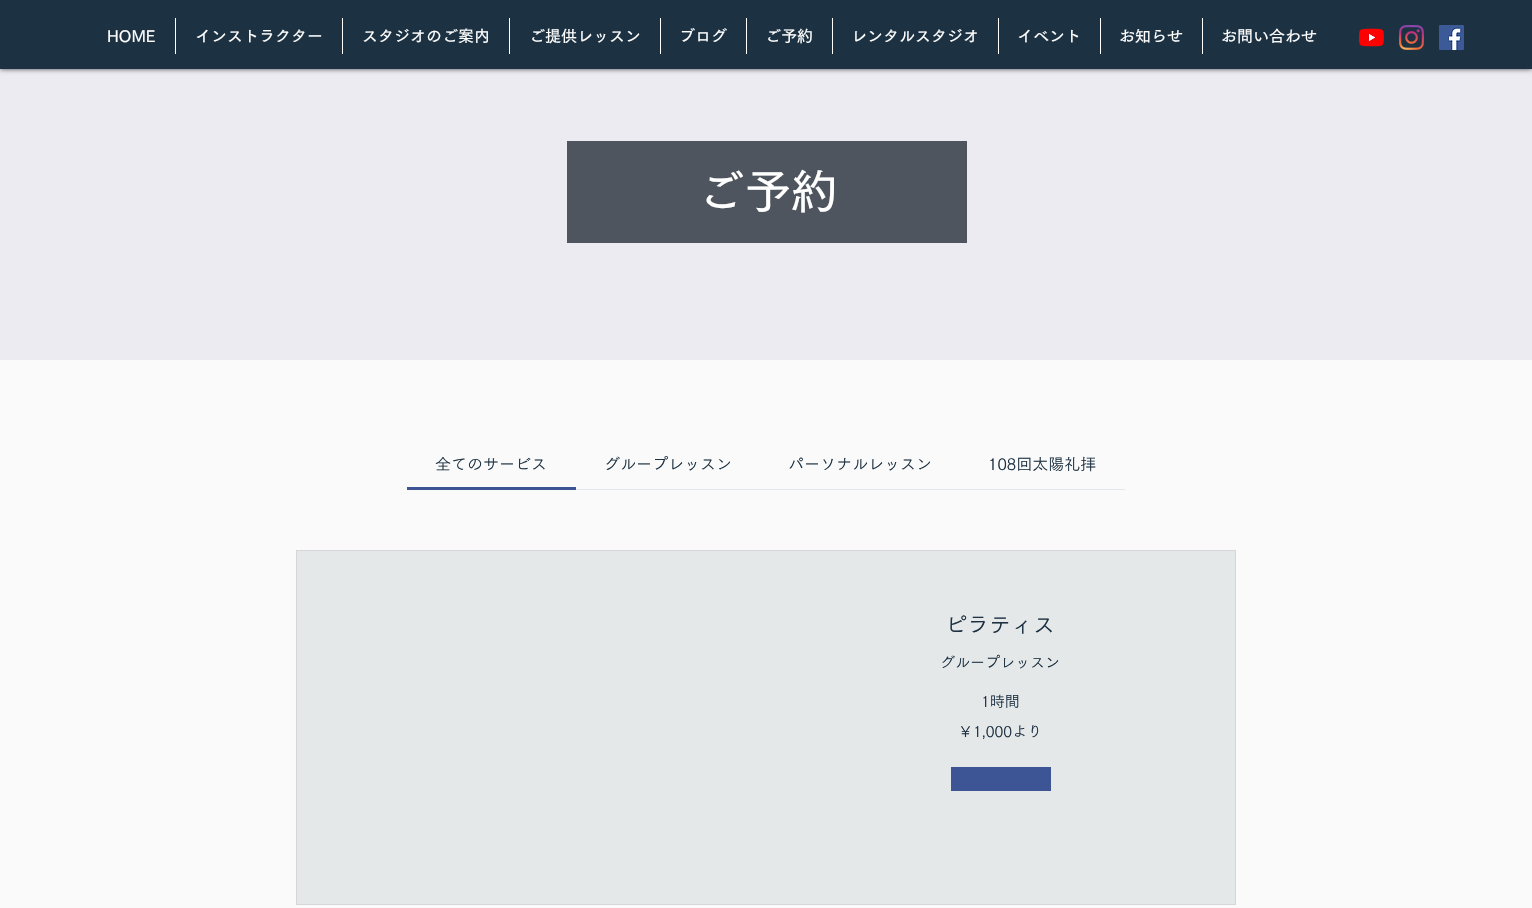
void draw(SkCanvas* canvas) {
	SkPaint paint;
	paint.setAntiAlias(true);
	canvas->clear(0xfffafafa);
	paint.setColor(0xffedebf2);
	canvas->drawRect(SkRect::MakeXYWH(0, 69, 1532, 291), paint);
	paint.setColor(0xb3000000);
	paint.setMaskFilter(SkMaskFilter::MakeBlur(kNormal_SkBlurStyle, 2.5));
	canvas->drawRect(SkRect::MakeXYWH(0, 0, 1532, 69), paint);
	paint.setMaskFilter(nullptr);
	paint.setColor(0xff1c3142);
	canvas->drawRect(SkRect::MakeXYWH(0, 0, 1532, 69), paint);
	SkFont f1(fontMgr->matchFamilyStyle("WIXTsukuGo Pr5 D", SkFontStyle(600, SkFontStyle::kNormal_Width, SkFontStyle::kUpright_Slant)), 16);
	f1.setSubpixel(true);
	paint.setColor(0xffffffff);
	canvas->drawString("HOME", 107, 42, f1, paint);
	canvas->drawRect(SkRect::MakeXYWH(175, 18, 1, 36), paint);
	canvas->drawString("インストラクター", 195, 42, f1, paint);
	canvas->drawRect(SkRect::MakeXYWH(342, 18, 1, 36), paint);
	canvas->drawString("スタジオのご案内", 362, 42, f1, paint);
	canvas->drawRect(SkRect::MakeXYWH(509, 18, 1, 36), paint);
	canvas->drawString("ご提供レッスン", 529, 42, f1, paint);
	canvas->drawRect(SkRect::MakeXYWH(660, 18, 1, 36), paint);
	canvas->drawString("ブログ", 679, 42, f1, paint);
	canvas->drawRect(SkRect::MakeXYWH(746, 18, 1, 36), paint);
	canvas->drawString("ご予約", 765, 42, f1, paint);
	canvas->drawRect(SkRect::MakeXYWH(832, 18, 1, 36), paint);
	canvas->drawString("レンタルスタジオ", 851, 42, f1, paint);
	canvas->drawRect(SkRect::MakeXYWH(998, 18, 1, 36), paint);
	canvas->drawString("イベント", 1017, 42, f1, paint);
	canvas->drawRect(SkRect::MakeXYWH(1100, 18, 1, 36), paint);
	canvas->drawString("お知らせ", 1119, 42, f1, paint);
	canvas->drawRect(SkRect::MakeXYWH(1202, 18, 1, 36), paint);
	canvas->drawString("お問い合わせ", 1221, 42, f1, paint);
	canvas->drawImageRect(SkImages::DeferredFromEncodedData(SkData::MakeFromFileName("img1.png")), SkRect::MakeXYWH(1359, 28, 25, 19), SkSamplingOptions());
	canvas->drawImageRect(SkImages::DeferredFromEncodedData(SkData::MakeFromFileName("img2.png")), SkRect::MakeXYWH(1399, 25, 25, 25), SkSamplingOptions());
	canvas->drawImageRect(SkImages::DeferredFromEncodedData(SkData::MakeFromFileName("img3.png")), SkRect::MakeXYWH(1439, 25, 25, 25), SkSamplingOptions());
	paint.setColor(0xff4f555e);
	canvas->drawRect(SkRect::MakeXYWH(567, 141, 400, 102), paint);
	SkFont f2(fontMgr->matchFamilyStyle("WIXTsukuGo Pr5 D", SkFontStyle(600, SkFontStyle::kNormal_Width, SkFontStyle::kUpright_Slant)), 47);
	f2.setSubpixel(true);
	paint.setColor(0xffffffff);
	canvas->drawString("ご予約", 697, 209, f2, paint);
	paint.setColor(0xff3d5495);
	canvas->drawRect(SkRect::MakeXYWH(407, 487, 169, 3), paint);
	SkFont f3(fontMgr->matchFamilyStyle("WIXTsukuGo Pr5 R", SkFontStyle::Normal()), 16);
	f3.setSubpixel(true);
	paint.setColor(0xff1c3142);
	canvas->drawString("全てのサービス", 435, 470, f3, paint);
	paint.setColor(0xffe2e7eb);
	canvas->drawRect(SkRect::MakeXYWH(576, 489, 549, 1), paint);
	paint.setColor(0xff1c3142);
	canvas->drawString("グループレッスン", 604, 470, f3, paint);
	canvas->drawString("パーソナルレッスン", 788, 470, f3, paint);
	canvas->drawString("108回太陽礼拝", 988, 470, f3, paint);
	paint.setStroke(true);
	paint.setStrokeWidth(1);
	paint.setColor(0xffd6d5d9);
	canvas->drawRect(SkRect::MakeXYWH(296.5, 550.5, 939, 354), paint);
	paint.setStroke(false);
	paint.setColor(0xffe5e8e9);
	canvas->drawRect(SkRect::MakeXYWH(297, 551, 938, 353), paint);
	SkFont f4(fontMgr->matchFamilyStyle("WIXTsukuGo Pr5 R", SkFontStyle::Normal()), 22);
	f4.setSubpixel(true);
	paint.setColor(0xff1c3142);
	canvas->drawString("ピラティス", 945, 633, f4, paint);
	SkFont f5(fontMgr->matchFamilyStyle("WIXTsukuGo Pr5 R", SkFontStyle::Normal()), 15);
	f5.setSubpixel(true);
	canvas->drawString("グループレッスン", 940, 668, f5, paint);
	canvas->drawString("1時間", 981, 707, f5, paint);
	canvas->drawString("￥1,000より", 958, 737, f5, paint);
	paint.setColor(0xff3d5495);
	canvas->drawRect(SkRect::MakeXYWH(951, 767, 100, 24), paint);
}
